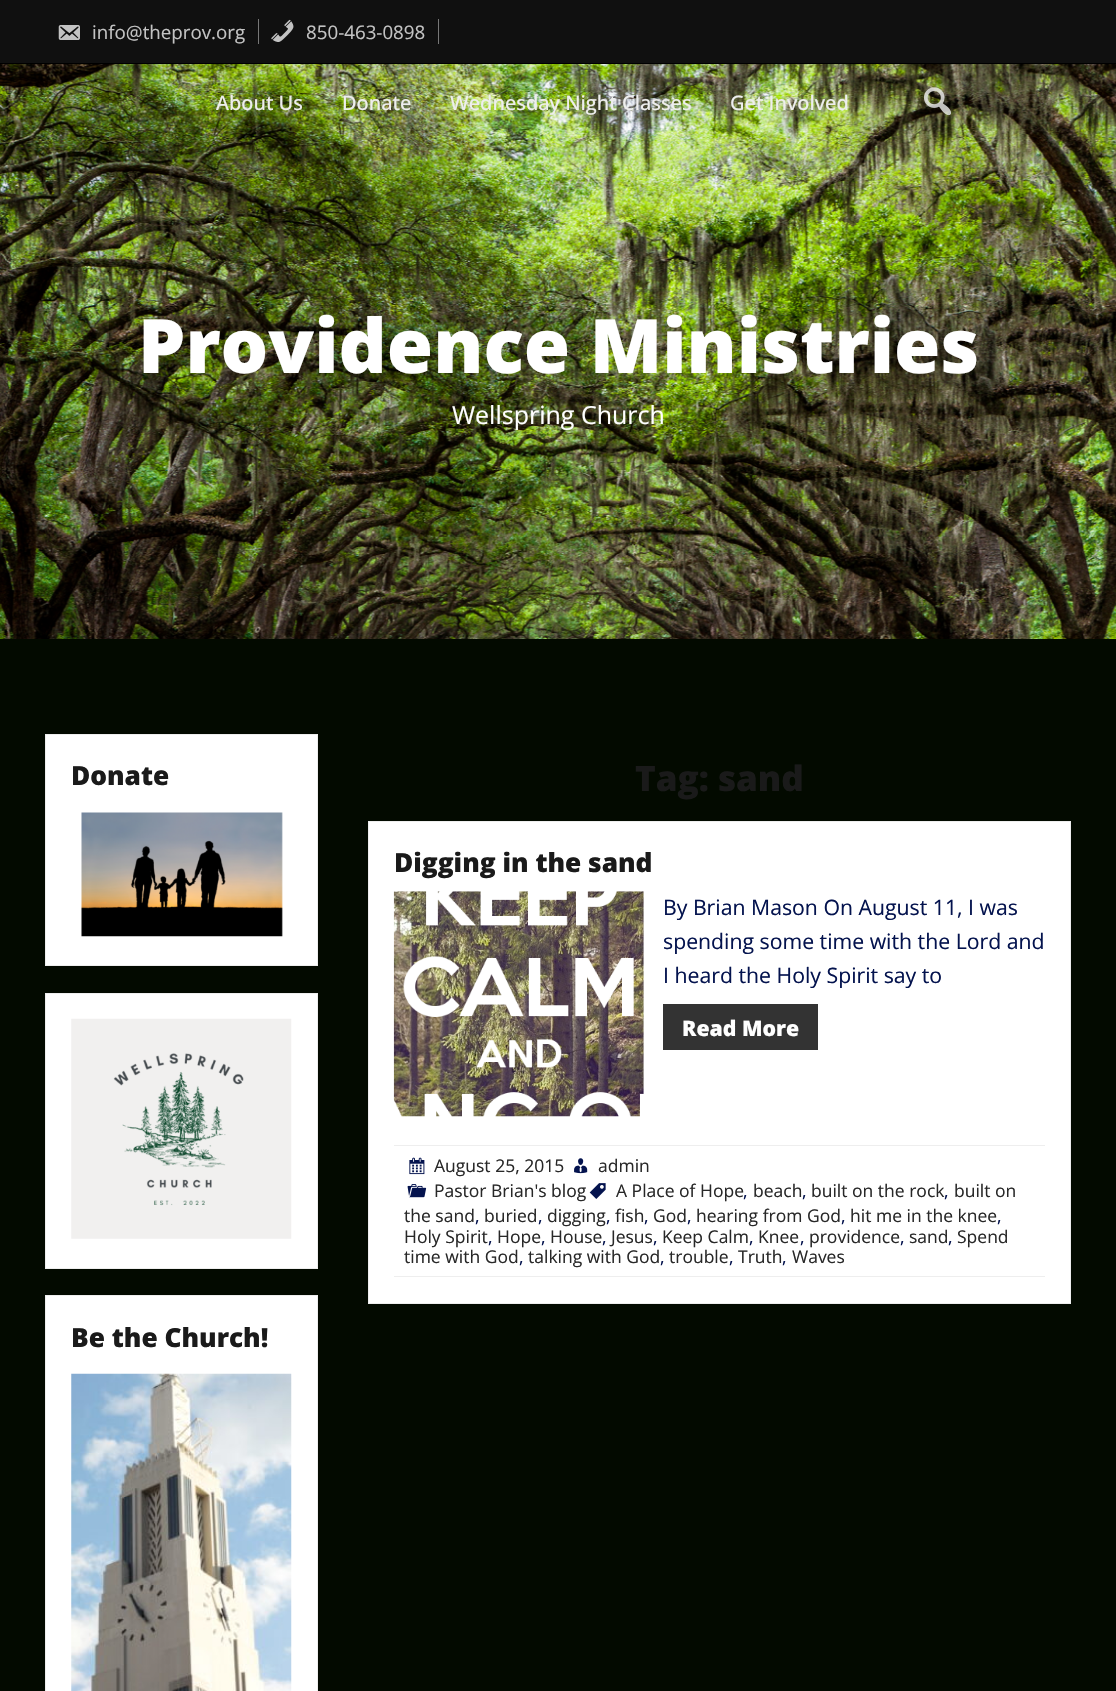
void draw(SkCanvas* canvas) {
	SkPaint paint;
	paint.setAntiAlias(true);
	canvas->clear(0xff030a00);
	paint.setColor(0xff101010);
	canvas->drawRect(SkRect::MakeXYWH(0, 0, 1116, 63), paint);
	paint.setColor(0xff000000);
	canvas->drawRect(SkRect::MakeXYWH(0, 63, 1116, 1), paint);
	paint.setColor(0xff777777);
	canvas->drawRect(SkRect::MakeXYWH(258, 19, 1, 25), paint);
	canvas->drawImageRect(SkImages::DeferredFromEncodedData(SkData::MakeFromFileName("img1.png")), SkRect::MakeXYWH(58, 25, 22, 15), SkSamplingOptions());
	SkFont f1(fontMgr->matchFamilyStyle("Open Sans", SkFontStyle::Normal()), 18.75);
	f1.setSubpixel(true);
	paint.setColor(0xffc3c3c3);
	canvas->drawString("info@theprov.org", 92, 39, f1, paint);
	paint.setColor(0xff777777);
	canvas->drawRect(SkRect::MakeXYWH(438, 19, 1, 25), paint);
	canvas->drawImageRect(SkImages::DeferredFromEncodedData(SkData::MakeFromFileName("img2.png")), SkRect::MakeXYWH(271, 19, 23, 23), SkSamplingOptions());
	paint.setColor(0xffc3c3c3);
	canvas->drawString("850-463-0898", 306, 39, f1, paint);
	canvas->drawImageRect(SkImages::DeferredFromEncodedData(SkData::MakeFromFileName("img4.png")), SkRect::MakeXYWH(0, 64, 1116, 575), SkSamplingOptions());
	SkFont f2(fontMgr->matchFamilyStyle("Open Sans", SkFontStyle(500, SkFontStyle::kNormal_Width, SkFontStyle::kUpright_Slant)), 20);
	f2.setSubpixel(true);
	paint.setColor(0xffeeeeee);
	canvas->drawString("About Us", 216, 110, f2, paint);
	canvas->drawString("Donate", 342, 110, f2, paint);
	canvas->drawString("Wednesday Night Classes", 450, 110, f2, paint);
	canvas->drawString("Get Involved", 730, 110, f2, paint);
	canvas->drawImageRect(SkImages::DeferredFromEncodedData(SkData::MakeFromFileName("img3.png")), SkRect::MakeXYWH(923, 87, 29, 29), SkSamplingOptions());
	SkFont f3(fontMgr->matchFamilyStyle("Open Sans", SkFontStyle(800, SkFontStyle::kNormal_Width, SkFontStyle::kUpright_Slant)), 75);
	f3.setSubpixel(true);
	paint.setColor(0xffffffff);
	canvas->drawString("Providence Ministries", 138, 373, f3, paint);
	SkFont f4(fontMgr->matchFamilyStyle("Open Sans", SkFontStyle::Normal()), 25);
	f4.setSubpixel(true);
	canvas->drawString("Wellspring Church", 452, 424, f4, paint);
	canvas->drawRect(SkRect::MakeXYWH(45.5, 734.5, 272, 231), paint);
	paint.setStroke(true);
	paint.setStrokeWidth(1);
	paint.setColor(0xffeeeeee);
	canvas->drawRect(SkRect::MakeXYWH(45.5, 734.5, 272, 231), paint);
	SkFont f5(fontMgr->matchFamilyStyle("Open Sans", SkFontStyle(800, SkFontStyle::kNormal_Width, SkFontStyle::kUpright_Slant)), 26.25);
	f5.setSubpixel(true);
	paint.setStroke(false);
	paint.setColor(0xff1a1a1a);
	canvas->drawString("Donate", 71, 785, f5, paint);
	canvas->drawImageRect(SkImages::DeferredFromEncodedData(SkData::MakeFromFileName("img5.png")), SkRect::MakeXYWH(81, 812, 202, 125), SkSamplingOptions());
	paint.setColor(0xffffffff);
	canvas->drawRect(SkRect::MakeXYWH(45.5, 993.5, 272, 275), paint);
	paint.setStroke(true);
	paint.setColor(0xffeeeeee);
	canvas->drawRect(SkRect::MakeXYWH(45.5, 993.5, 272, 275), paint);
	canvas->drawImageRect(SkImages::DeferredFromEncodedData(SkData::MakeFromFileName("img6.png")), SkRect::MakeXYWH(71, 1018, 221, 221), SkSamplingOptions());
	paint.setStroke(false);
	paint.setColor(0xffffffff);
	canvas->drawRect(SkRect::MakeXYWH(45.5, 1295.5, 272, 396), paint);
	paint.setStroke(true);
	paint.setColor(0xffeeeeee);
	canvas->drawRect(SkRect::MakeXYWH(45.5, 1295.5, 272, 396), paint);
	paint.setStroke(false);
	paint.setColor(0xff1a1a1a);
	canvas->drawString("Be the Church!", 71, 1347, f5, paint);
	canvas->drawImageRect(SkImages::DeferredFromEncodedData(SkData::MakeFromFileName("img7.png")), SkRect::MakeXYWH(71, 1373, 221, 318), SkSamplingOptions());
	SkFont f6(fontMgr->matchFamilyStyle("Open Sans", SkFontStyle(800, SkFontStyle::kNormal_Width, SkFontStyle::kUpright_Slant)), 35);
	f6.setSubpixel(true);
	canvas->drawString("Tag: sand", 635, 791, f6, paint);
	paint.setColor(0xffffffff);
	canvas->drawRect(SkRect::MakeXYWH(368.5, 821.5, 702, 482), paint);
	paint.setStroke(true);
	paint.setColor(0xffeeeeee);
	canvas->drawRect(SkRect::MakeXYWH(368.5, 821.5, 702, 482), paint);
	paint.setStroke(false);
	paint.setColor(0xff1a1a1a);
	canvas->drawString("Digging in the sand", 394, 872, f5, paint);
	canvas->drawImageRect(SkImages::DeferredFromEncodedData(SkData::MakeFromFileName("img8.png")), SkRect::MakeXYWH(393, 891, 251, 226), SkSamplingOptions());
	SkFont f7(fontMgr->matchFamilyStyle("Open Sans", SkFontStyle::Normal()), 21.25);
	f7.setSubpixel(true);
	paint.setColor(0xff04134e);
	canvas->drawString("By Brian Mason On August 11, I was", 663, 915, f7, paint);
	canvas->drawString("spending some time with the Lord and", 663, 949, f7, paint);
	canvas->drawString("I heard the Holy Spirit say to", 663, 983, f7, paint);
	paint.setColor(0xff333333);
	canvas->drawRect(SkRect::MakeXYWH(663, 1004, 155, 46), paint);
	SkFont f8(fontMgr->matchFamilyStyle("Open Sans", SkFontStyle(800, SkFontStyle::kNormal_Width, SkFontStyle::kUpright_Slant)), 21.25);
	f8.setSubpixel(true);
	paint.setColor(0xffffffff);
	canvas->drawString("Read More", 682, 1036, f8, paint);
	paint.setColor(0xffeeeeee);
	canvas->drawRect(SkRect::MakeXYWH(394, 1145, 651, 1), paint);
	canvas->drawRect(SkRect::MakeXYWH(394, 1276, 651, 1), paint);
	canvas->drawImageRect(SkImages::DeferredFromEncodedData(SkData::MakeFromFileName("img9.png")), SkRect::MakeXYWH(409, 1157, 16, 18), SkSamplingOptions());
	SkFont f9(fontMgr->matchFamilyStyle("Open Sans", SkFontStyle::Normal()), 17.5);
	f9.setSubpixel(true);
	paint.setColor(0xff282828);
	canvas->drawString("August 25, 2015", 434, 1172, f9, paint);
	canvas->drawImageRect(SkImages::DeferredFromEncodedData(SkData::MakeFromFileName("img10.png")), SkRect::MakeXYWH(574, 1158, 14, 16), SkSamplingOptions());
	canvas->drawString("admin", 598, 1172, f9, paint);
	canvas->drawImageRect(SkImages::DeferredFromEncodedData(SkData::MakeFromFileName("img11.png")), SkRect::MakeXYWH(407, 1184, 20, 14), SkSamplingOptions());
	canvas->drawString("Pastor Brian's blog", 434, 1197, f9, paint);
	canvas->drawImageRect(SkImages::DeferredFromEncodedData(SkData::MakeFromFileName("img12.png")), SkRect::MakeXYWH(589, 1183, 17, 16), SkSamplingOptions());
	canvas->drawString("A Place of Hope", 616, 1197, f9, paint);
	paint.setColor(0xff04134e);
	canvas->drawString(",", 743, 1197, f9, paint);
	paint.setColor(0xff282828);
	canvas->drawString("beach", 753, 1197, f9, paint);
	paint.setColor(0xff04134e);
	canvas->drawString(",", 802, 1197, f9, paint);
	paint.setColor(0xff282828);
	canvas->drawString("built on the rock", 811, 1197, f9, paint);
	paint.setColor(0xff04134e);
	canvas->drawString(",", 944, 1197, f9, paint);
	paint.setColor(0xff282828);
	canvas->drawString("built on", 954, 1197, f9, paint);
	canvas->drawString("the sand", 404, 1222, f9, paint);
	paint.setColor(0xff04134e);
	canvas->drawString(",", 475, 1222, f9, paint);
	paint.setColor(0xff282828);
	canvas->drawString("buried", 484, 1222, f9, paint);
	paint.setColor(0xff04134e);
	canvas->drawString(",", 538, 1222, f9, paint);
	paint.setColor(0xff282828);
	canvas->drawString("digging", 547, 1222, f9, paint);
	paint.setColor(0xff04134e);
	canvas->drawString(",", 606, 1222, f9, paint);
	paint.setColor(0xff282828);
	canvas->drawString("fish", 615, 1222, f9, paint);
	paint.setColor(0xff04134e);
	canvas->drawString(",", 644, 1222, f9, paint);
	paint.setColor(0xff282828);
	canvas->drawString("God", 653, 1222, f9, paint);
	paint.setColor(0xff04134e);
	canvas->drawString(",", 687, 1222, f9, paint);
	paint.setColor(0xff282828);
	canvas->drawString("hearing from God", 696, 1222, f9, paint);
	paint.setColor(0xff04134e);
	canvas->drawString(",", 841, 1222, f9, paint);
	paint.setColor(0xff282828);
	canvas->drawString("hit me in the knee", 850, 1222, f9, paint);
	paint.setColor(0xff04134e);
	canvas->drawString(",", 997, 1222, f9, paint);
	paint.setColor(0xff282828);
	canvas->drawString("Holy Spirit", 404, 1243, f9, paint);
	paint.setColor(0xff04134e);
	canvas->drawString(",", 488, 1243, f9, paint);
	paint.setColor(0xff282828);
	canvas->drawString("Hope", 497, 1243, f9, paint);
	paint.setColor(0xff04134e);
	canvas->drawString(",", 541, 1243, f9, paint);
	paint.setColor(0xff282828);
	canvas->drawString("House", 550, 1243, f9, paint);
	paint.setColor(0xff04134e);
	canvas->drawString(",", 602, 1243, f9, paint);
	paint.setColor(0xff282828);
	canvas->drawString("Jesus", 611, 1243, f9, paint);
	paint.setColor(0xff04134e);
	canvas->drawString(",", 653, 1243, f9, paint);
	paint.setColor(0xff282828);
	canvas->drawString("Keep Calm", 662, 1243, f9, paint);
	paint.setColor(0xff04134e);
	canvas->drawString(",", 749, 1243, f9, paint);
	paint.setColor(0xff282828);
	canvas->drawString("Knee", 758, 1243, f9, paint);
	paint.setColor(0xff04134e);
	canvas->drawString(",", 800, 1243, f9, paint);
	paint.setColor(0xff282828);
	canvas->drawString("providence", 809, 1243, f9, paint);
	paint.setColor(0xff04134e);
	canvas->drawString(",", 900, 1243, f9, paint);
	paint.setColor(0xff282828);
	canvas->drawString("sand", 909, 1243, f9, paint);
	paint.setColor(0xff04134e);
	canvas->drawString(",", 948, 1243, f9, paint);
	paint.setColor(0xff282828);
	canvas->drawString("Spend", 957, 1243, f9, paint);
	canvas->drawString("time with God", 404, 1263, f9, paint);
	paint.setColor(0xff04134e);
	canvas->drawString(",", 519, 1263, f9, paint);
	paint.setColor(0xff282828);
	canvas->drawString("talking with God", 528, 1263, f9, paint);
	paint.setColor(0xff04134e);
	canvas->drawString(",", 660, 1263, f9, paint);
	paint.setColor(0xff282828);
	canvas->drawString("trouble", 669, 1263, f9, paint);
	paint.setColor(0xff04134e);
	canvas->drawString(",", 729, 1263, f9, paint);
	paint.setColor(0xff282828);
	canvas->drawString("Truth", 738, 1263, f9, paint);
	paint.setColor(0xff04134e);
	canvas->drawString(",", 782, 1263, f9, paint);
	paint.setColor(0xff282828);
	canvas->drawString("Waves", 792, 1263, f9, paint);
}
